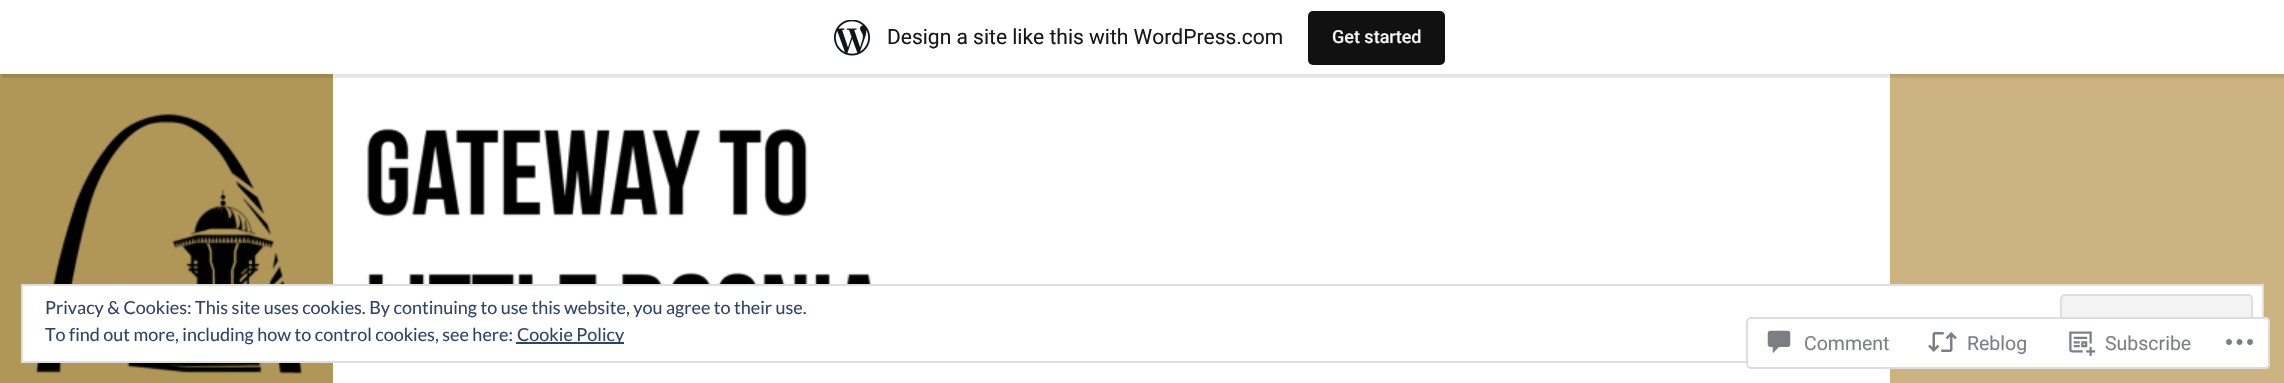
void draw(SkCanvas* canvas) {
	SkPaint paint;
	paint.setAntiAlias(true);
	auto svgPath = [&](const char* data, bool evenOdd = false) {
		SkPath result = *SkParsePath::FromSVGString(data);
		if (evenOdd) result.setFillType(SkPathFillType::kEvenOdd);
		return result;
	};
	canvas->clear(0xffcdb380);
	paint.setColor(0xffffffff);
	canvas->drawRect(SkRect::MakeXYWH(333, 74, 1557, 309), paint);
	paint.setColor(0xffb09758);
	canvas->drawRect(SkRect::MakeXYWH(0, 74, 333, 309), paint);
	paint.setColor(0x0d000000);
	paint.setMaskFilter(SkMaskFilter::MakeBlur(kNormal_SkBlurStyle, 1.5));
	canvas->drawRect(SkRect::MakeXYWH(0, 2, 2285, 73), paint);
	paint.setMaskFilter(nullptr);
	paint.setColor(0x14000000);
	canvas->drawPath(svgPath("M2 74V78H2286V5H2284V74Z"), paint);
	paint.setColor(0xffffffff);
	canvas->drawRect(SkRect::MakeXYWH(0, 0, 2284, 74), paint);
	canvas->drawImageRect(SkImages::DeferredFromEncodedData(SkData::MakeFromFileName("img1.png")), SkRect::MakeXYWH(834, 20, 36, 36), SkSamplingOptions());
	SkFont f1(fontMgr->matchFamilyStyle("Roboto", SkFontStyle::Normal()), 21);
	f1.setSubpixel(true);
	paint.setColor(0xff171717);
	canvas->drawString("Design a site like this with WordPress.com", 887, 44, f1, paint);
	paint.setColor(0xff111111);
	canvas->drawRoundRect(SkRect::MakeXYWH(1308, 11, 137, 54), 5, 5, paint);
	SkFont f2(fontMgr->matchFamilyStyle("Roboto", SkFontStyle(500, SkFontStyle::kNormal_Width, SkFontStyle::kUpright_Slant)), 18);
	f2.setSubpixel(true);
	paint.setColor(0xfff6f7f7);
	canvas->drawString("Get started", 1332, 43, f2, paint);
	canvas->drawImageRect(SkImages::DeferredFromEncodedData(SkData::MakeFromFileName("img2.png")), SkRect::MakeXYWH(35, 113, 837, 261), SkSamplingOptions());
	paint.setColor(0xffffffff);
	canvas->drawRect(SkRect::MakeXYWH(22, 285, 2241, 77), paint);
	paint.setStroke(true);
	paint.setStrokeWidth(2);
	paint.setColor(0xffdedede);
	canvas->drawRect(SkRect::MakeXYWH(22, 285, 2241, 77), paint);
	SkFont f3(fontMgr->matchFamilyStyle("Lato", SkFontStyle::Normal()), 18);
	f3.setSubpixel(true);
	paint.setStroke(false);
	paint.setColor(0xff2e4467);
	canvas->drawString("Privacy & Cookies: This site uses cookies. By continuing to use this website, you agree to their use.", 45, 314, f3, paint);
	paint.setColor(0xfff3f3f3);
	canvas->drawRoundRect(SkRect::MakeXYWH(2061, 295, 191, 57), 4, 4, paint);
	paint.setStroke(true);
	paint.setColor(0xffdedede);
	canvas->drawRoundRect(SkRect::MakeXYWH(2061, 295, 191, 57), 4, 4, paint);
	paint.setStroke(false);
	paint.setColor(0xff2e4467);
	canvas->drawString("To find out more, including how to control cookies, see here:", 45, 341, f3, paint);
	canvas->drawRect(SkRect::MakeXYWH(516, 342, 108, 2), paint);
	canvas->drawString("Cookie Policy", 517, 341, f3, paint);
	paint.setColor(0xfaffffff);
	canvas->drawRoundRect(SkRect::MakeXYWH(1746, 317, 524, 52), 5, 5, paint);
	paint.setStroke(true);
	paint.setColor(0xfadcdcde);
	canvas->drawRoundRect(SkRect::MakeXYWH(1747, 318, 522, 50), 4, 4, paint);
	canvas->drawImageRect(SkImages::DeferredFromEncodedData(SkData::MakeFromFileName("img3.png")), SkRect::MakeXYWH(1767, 330, 24, 24), SkSamplingOptions());
	SkFont f4(fontMgr->matchFamilyStyle("Roboto", SkFontStyle::Normal()), 19.5);
	f4.setSubpixel(true);
	paint.setStroke(false);
	paint.setColor(0xff7b7f85);
	canvas->drawString("Comment", 1804, 350, f4, paint);
	canvas->drawImageRect(SkImages::DeferredFromEncodedData(SkData::MakeFromFileName("img4.png")), SkRect::MakeXYWH(1928, 332, 29, 20), SkSamplingOptions());
	canvas->drawString("Reblog", 1967, 350, f4, paint);
	canvas->drawImageRect(SkImages::DeferredFromEncodedData(SkData::MakeFromFileName("img5.png")), SkRect::MakeXYWH(2069, 331, 27, 25), SkSamplingOptions());
	canvas->drawString("Subscribe", 2105, 350, f4, paint);
	canvas->drawImageRect(SkImages::DeferredFromEncodedData(SkData::MakeFromFileName("img6.png")), SkRect::MakeXYWH(2226, 339, 27, 6), SkSamplingOptions());
}
